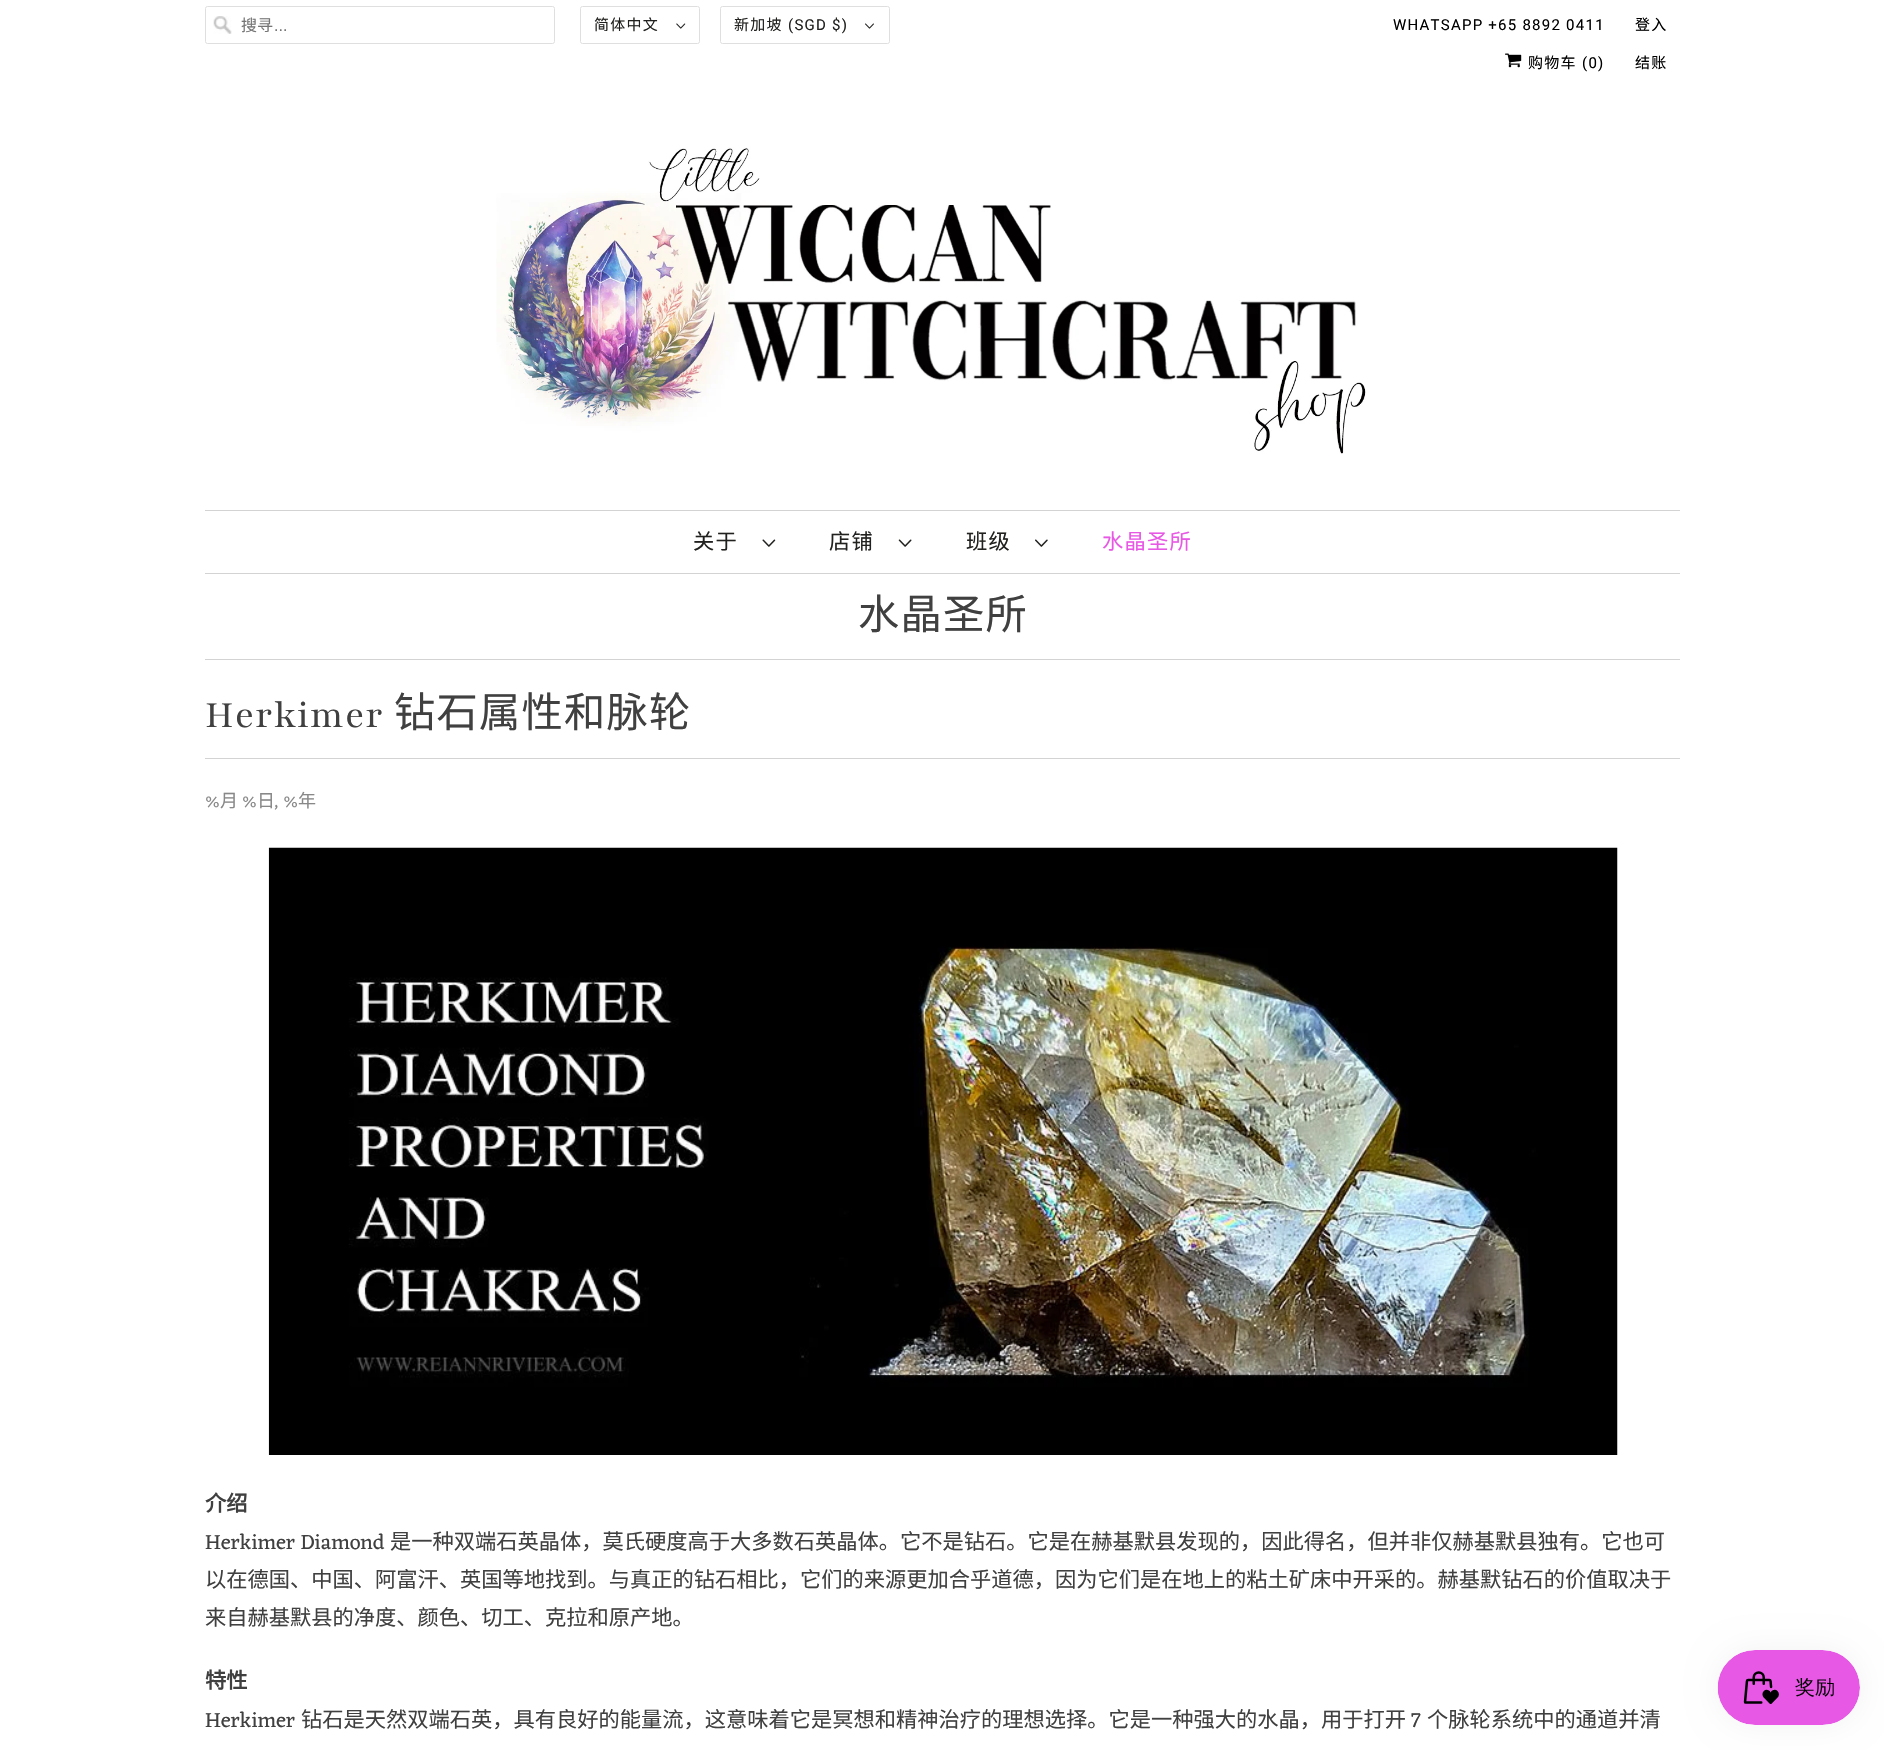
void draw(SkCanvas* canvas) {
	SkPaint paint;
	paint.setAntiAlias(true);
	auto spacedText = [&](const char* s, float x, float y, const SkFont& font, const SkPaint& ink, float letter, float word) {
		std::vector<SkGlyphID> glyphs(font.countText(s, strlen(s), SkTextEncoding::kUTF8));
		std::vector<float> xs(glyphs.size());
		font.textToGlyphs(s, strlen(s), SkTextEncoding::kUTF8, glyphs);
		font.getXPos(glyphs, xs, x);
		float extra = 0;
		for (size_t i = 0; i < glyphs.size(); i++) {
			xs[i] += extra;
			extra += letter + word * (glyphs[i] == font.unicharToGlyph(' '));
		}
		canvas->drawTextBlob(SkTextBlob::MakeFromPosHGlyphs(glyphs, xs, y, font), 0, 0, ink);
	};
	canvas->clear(0xffffffff);
	canvas->drawImageRect(SkImages::DeferredFromEncodedData(SkData::MakeFromFileName("img1.png")), SkRect::MakeXYWH(213, 16, 19, 18), SkSamplingOptions());
	paint.setStroke(true);
	paint.setStrokeWidth(1);
	paint.setColor(0xffdfdfdf);
	canvas->drawRoundRect(SkRect::MakeXYWH(205.5, 6.5, 349, 37), 2, 2, paint);
	SkFont f1(fontMgr->matchFamilyStyle("Noto Sans CJK SC", SkFontStyle::Normal()), 16);
	f1.setSubpixel(true);
	paint.setStroke(false);
	paint.setColor(0xff757575);
	canvas->drawString("搜寻", 241, 31, f1, paint);
	SkFont f2(fontMgr->matchFamilyStyle("Liberation Sans", SkFontStyle::Normal()), 16);
	f2.setSubpixel(true);
	canvas->drawString("...", 274, 31, f2, paint);
	paint.setStroke(true);
	paint.setColor(0xffdfdfdf);
	canvas->drawRoundRect(SkRect::MakeXYWH(580.5, 6.5, 119, 37), 2, 2, paint);
	SkFont f3(fontMgr->matchFamilyStyle("Noto Sans CJK SC", SkFontStyle::Normal()), 15);
	f3.setSubpixel(true);
	paint.setStroke(false);
	paint.setColor(0xff21211f);
	spacedText("简体中文", 594, 30, f3, paint, 1.25, 0);
	canvas->drawImageRect(SkImages::DeferredFromEncodedData(SkData::MakeFromFileName("img2.png")), SkRect::MakeXYWH(676, 23, 10, 6), SkSamplingOptions());
	paint.setStroke(true);
	paint.setColor(0xffdfdfdf);
	canvas->drawRoundRect(SkRect::MakeXYWH(720.5, 6.5, 169, 37), 2, 2, paint);
	paint.setStroke(false);
	paint.setColor(0xff21211f);
	spacedText("新加坡", 734, 30, f3, paint, 1.25, 0);
	SkFont f4(fontMgr->matchFamilyStyle("Roboto", SkFontStyle::Normal()), 15);
	f4.setSubpixel(true);
	spacedText("(SGD $)", 788, 30, f4, paint, 1.25, 0);
	canvas->drawImageRect(SkImages::DeferredFromEncodedData(SkData::MakeFromFileName("img3.png")), SkRect::MakeXYWH(865, 23, 9, 6), SkSamplingOptions());
	paint.setColor(0xff000000);
	spacedText("WHATSAPP +65 8892 0411", 1393, 30, f4, paint, 1.25, 0);
	spacedText("登入", 1635, 30, f3, paint, 1.25, 0);
	canvas->drawImageRect(SkImages::DeferredFromEncodedData(SkData::MakeFromFileName("img4.png")), SkRect::MakeXYWH(1505, 53, 17, 15), SkSamplingOptions());
	spacedText("购物车", 1528, 68, f3, paint, 1.25, 0);
	spacedText("(0)", 1582, 68, f4, paint, 1.25, 0);
	spacedText("结账", 1635, 68, f3, paint, 1.25, 0);
	canvas->drawImageRect(SkImages::DeferredFromEncodedData(SkData::MakeFromFileName("img5.png")), SkRect::MakeXYWH(496, 147, 870, 307), SkSamplingOptions());
	paint.setColor(0xffd3d3d3);
	canvas->drawRect(SkRect::MakeXYWH(205, 510, 1475, 1), paint);
	canvas->drawRect(SkRect::MakeXYWH(205, 573, 1475, 1), paint);
	SkFont f5(fontMgr->matchFamilyStyle("Noto Sans CJK SC", SkFontStyle::Normal()), 21.25);
	f5.setSubpixel(true);
	paint.setColor(0xff21211f);
	spacedText("关于", 693, 549, f5, paint, 1.25, 0);
	canvas->drawImageRect(SkImages::DeferredFromEncodedData(SkData::MakeFromFileName("img6.png")), SkRect::MakeXYWH(762, 539, 14, 8), SkSamplingOptions());
	spacedText("店铺", 829, 549, f5, paint, 1.25, 0);
	canvas->drawImageRect(SkImages::DeferredFromEncodedData(SkData::MakeFromFileName("img7.png")), SkRect::MakeXYWH(898, 539, 14, 8), SkSamplingOptions());
	spacedText("班级", 966, 549, f5, paint, 1.25, 0);
	canvas->drawImageRect(SkImages::DeferredFromEncodedData(SkData::MakeFromFileName("img8.png")), SkRect::MakeXYWH(1035, 539, 13, 8), SkSamplingOptions());
	paint.setColor(0xffe758e5);
	spacedText("水晶圣所", 1102, 549, f5, paint, 1.25, 0);
	paint.setColor(0xffd3d3d3);
	canvas->drawRect(SkRect::MakeXYWH(205, 659, 1475, 1), paint);
	SkFont f6(fontMgr->matchFamilyStyle("Noto Sans CJK SC", SkFontStyle::Normal()), 41.25);
	f6.setSubpixel(true);
	paint.setColor(0xff404040);
	spacedText("水晶圣所", 858, 629, f6, paint, 1.25, 0);
	paint.setColor(0xffd3d3d3);
	canvas->drawRect(SkRect::MakeXYWH(205, 758, 1475, 1), paint);
	SkFont f7(fontMgr->matchFamilyStyle("Playfair", SkFontStyle::Normal()), 41.25);
	f7.setSubpixel(true);
	paint.setColor(0xff404040);
	spacedText("Herkimer", 205, 727, f7, paint, 1.25, 0);
	spacedText("钻石属性和脉轮", 394, 727, f6, paint, 1.25, 0);
	SkFont f8(fontMgr->matchFamilyStyle("Eczar", SkFontStyle::Normal()), 18);
	f8.setSubpixel(true);
	paint.setColor(0xff888888);
	canvas->drawString("%", 205, 807, f8, paint);
	SkFont f9(fontMgr->matchFamilyStyle("Noto Sans CJK SC", SkFontStyle::Normal()), 18);
	f9.setSubpixel(true);
	canvas->drawString("月", 220, 807, f9, paint);
	canvas->drawString("%", 242, 807, f8, paint);
	canvas->drawString("日", 257, 807, f9, paint);
	canvas->drawString(", %", 274, 807, f8, paint);
	canvas->drawString("年", 298, 807, f9, paint);
	canvas->drawImageRect(SkImages::DeferredFromEncodedData(SkData::MakeFromFileName("img9.png")), SkRect::MakeXYWH(268, 847, 1350, 608), SkSamplingOptions());
	SkFont f10(fontMgr->matchFamilyStyle("Noto Sans CJK SC", SkFontStyle::Bold()), 21.25);
	f10.setSubpixel(true);
	paint.setColor(0xff404040);
	canvas->drawString("介绍", 205, 1511, f10, paint);
	SkFont f11(fontMgr->matchFamilyStyle("Eczar", SkFontStyle::Normal()), 21.25);
	f11.setSubpixel(true);
	canvas->drawString("Herkimer Diamond", 205, 1549, f11, paint);
	canvas->drawString("是一种双端石英晶体，莫氏硬度高于大多数石英晶体。它不是钻石。它是在赫基默县发现的，因此得名，但并非仅赫基默县独有。它也可", 390, 1549, f5, paint);
	canvas->drawString("以在德国、中国、阿富汗、英国等地找到。与真正的钻石相比，它们的来源更加合乎道德，因为它们是在地上的粘土矿床中开采的。赫基默钻石的价值取决于", 205, 1587, f5, paint);
	canvas->drawString("来自赫基默县的净度、颜色、切工、克拉和原产地。", 205, 1625, f5, paint);
	canvas->drawString("特性", 205, 1688, f10, paint);
	canvas->drawString("Herkimer", 205, 1727, f11, paint);
	canvas->drawString("钻石是天然双端石英，具有良好的能量流，这意味着它是冥想和精神治疗的理想选择。它是一种强大的水晶，用于打开", 301, 1727, f5, paint);
	canvas->drawString("7", 1411, 1727, f11, paint);
	canvas->drawString("个脉轮系统中的通道并清", 1427, 1727, f5, paint);
	paint.setColor(0x0d000000);
	paint.setMaskFilter(SkMaskFilter::MakeBlur(kNormal_SkBlurStyle, 15.5));
	canvas->drawRoundRect(SkRect::MakeXYWH(1718, 1650, 142, 75), 37.5, 37.5, paint);
	paint.setMaskFilter(nullptr);
	canvas->drawImageRect(SkImages::DeferredFromEncodedData(SkData::MakeFromFileName("img10.png")), SkRect::MakeXYWH(1717, 1650, 143, 75), SkSamplingOptions());
}
